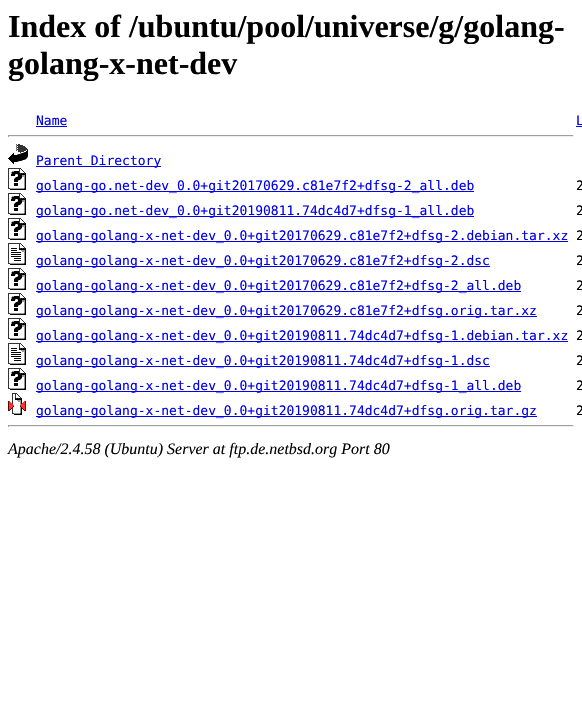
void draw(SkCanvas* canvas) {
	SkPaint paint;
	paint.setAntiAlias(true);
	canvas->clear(0xffffffff);
	SkFont f1(fontMgr->matchFamilyStyle("Liberation Serif", SkFontStyle::Bold()), 32);
	f1.setSubpixel(true);
	paint.setColor(0xff000000);
	canvas->drawString("Index of /ubuntu/pool/universe/g/golang-", 8, 37, f1, paint);
	canvas->drawString("golang-x-net-dev", 8, 74, f1, paint);
	SkFont f2(fontMgr->matchFamilyStyle("DejaVu Sans Mono", SkFontStyle::Normal()), 13);
	f2.setSubpixel(true);
	paint.setColor(0xff0000ee);
	canvas->drawString("Name", 36, 125, f2, paint);
	canvas->drawRect(SkRect::MakeXYWH(36, 126, 31, 1), paint);
	canvas->drawString("L", 576, 125, f2, paint);
	canvas->drawRect(SkRect::MakeXYWH(576, 126, 6, 1), paint);
	paint.setColor(0xff9f9f9f);
	canvas->drawRect(SkRect::MakeXYWH(8, 135, 566, 1), paint);
	paint.setColor(0xffeeeeee);
	canvas->drawRect(SkRect::MakeXYWH(573, 135, 1, 2), paint);
	canvas->drawRect(SkRect::MakeXYWH(8, 136, 566, 1), paint);
	paint.setColor(0xff9f9f9f);
	canvas->drawRect(SkRect::MakeXYWH(8, 135, 1, 2), paint);
	canvas->drawImageRect(SkImages::DeferredFromEncodedData(SkData::MakeFromFileName("img1.png")), SkRect::MakeXYWH(8, 144, 20, 20), SkSamplingOptions());
	paint.setColor(0xff0000ee);
	canvas->drawRect(SkRect::MakeXYWH(36, 166, 125, 1), paint);
	canvas->drawString("Parent Directory", 36, 165, f2, paint);
	canvas->drawImageRect(SkImages::DeferredFromEncodedData(SkData::MakeFromFileName("img2.png")), SkRect::MakeXYWH(8, 168, 18, 22), SkSamplingOptions());
	canvas->drawRect(SkRect::MakeXYWH(36, 191, 438, 1), paint);
	canvas->drawString("golang-go.net-dev_0.0+git20170629.c81e7f2+dfsg-2_all.deb", 36, 190, f2, paint);
	paint.setColor(0xff000000);
	canvas->drawString("2", 576, 190, f2, paint);
	canvas->drawImageRect(SkImages::DeferredFromEncodedData(SkData::MakeFromFileName("img2.png")), SkRect::MakeXYWH(8, 193, 18, 22), SkSamplingOptions());
	paint.setColor(0xff0000ee);
	canvas->drawRect(SkRect::MakeXYWH(36, 216, 438, 1), paint);
	canvas->drawString("golang-go.net-dev_0.0+git20190811.74dc4d7+dfsg-1_all.deb", 36, 215, f2, paint);
	paint.setColor(0xff000000);
	canvas->drawString("2", 576, 215, f2, paint);
	canvas->drawImageRect(SkImages::DeferredFromEncodedData(SkData::MakeFromFileName("img2.png")), SkRect::MakeXYWH(8, 218, 18, 22), SkSamplingOptions());
	paint.setColor(0xff0000ee);
	canvas->drawRect(SkRect::MakeXYWH(36, 241, 532, 1), paint);
	canvas->drawString("golang-golang-x-net-dev_0.0+git20170629.c81e7f2+dfsg-2.debian.tar.xz", 36, 240, f2, paint);
	paint.setColor(0xff000000);
	canvas->drawString("2", 576, 240, f2, paint);
	canvas->drawImageRect(SkImages::DeferredFromEncodedData(SkData::MakeFromFileName("img3.png")), SkRect::MakeXYWH(8, 243, 18, 22), SkSamplingOptions());
	paint.setColor(0xff0000ee);
	canvas->drawRect(SkRect::MakeXYWH(36, 266, 454, 1), paint);
	canvas->drawString("golang-golang-x-net-dev_0.0+git20170629.c81e7f2+dfsg-2.dsc", 36, 265, f2, paint);
	paint.setColor(0xff000000);
	canvas->drawString("2", 576, 265, f2, paint);
	canvas->drawImageRect(SkImages::DeferredFromEncodedData(SkData::MakeFromFileName("img2.png")), SkRect::MakeXYWH(8, 268, 18, 22), SkSamplingOptions());
	paint.setColor(0xff0000ee);
	canvas->drawRect(SkRect::MakeXYWH(36, 291, 485, 1), paint);
	canvas->drawString("golang-golang-x-net-dev_0.0+git20170629.c81e7f2+dfsg-2_all.deb", 36, 290, f2, paint);
	paint.setColor(0xff000000);
	canvas->drawString("2", 576, 290, f2, paint);
	canvas->drawImageRect(SkImages::DeferredFromEncodedData(SkData::MakeFromFileName("img2.png")), SkRect::MakeXYWH(8, 293, 18, 22), SkSamplingOptions());
	paint.setColor(0xff0000ee);
	canvas->drawRect(SkRect::MakeXYWH(36, 316, 501, 1), paint);
	canvas->drawString("golang-golang-x-net-dev_0.0+git20170629.c81e7f2+dfsg.orig.tar.xz", 36, 315, f2, paint);
	paint.setColor(0xff000000);
	canvas->drawString("2", 576, 315, f2, paint);
	canvas->drawImageRect(SkImages::DeferredFromEncodedData(SkData::MakeFromFileName("img2.png")), SkRect::MakeXYWH(8, 318, 18, 22), SkSamplingOptions());
	paint.setColor(0xff0000ee);
	canvas->drawRect(SkRect::MakeXYWH(36, 341, 532, 1), paint);
	canvas->drawString("golang-golang-x-net-dev_0.0+git20190811.74dc4d7+dfsg-1.debian.tar.xz", 36, 340, f2, paint);
	paint.setColor(0xff000000);
	canvas->drawString("2", 576, 340, f2, paint);
	canvas->drawImageRect(SkImages::DeferredFromEncodedData(SkData::MakeFromFileName("img3.png")), SkRect::MakeXYWH(8, 343, 18, 22), SkSamplingOptions());
	paint.setColor(0xff0000ee);
	canvas->drawRect(SkRect::MakeXYWH(36, 366, 454, 1), paint);
	canvas->drawString("golang-golang-x-net-dev_0.0+git20190811.74dc4d7+dfsg-1.dsc", 36, 365, f2, paint);
	paint.setColor(0xff000000);
	canvas->drawString("2", 576, 365, f2, paint);
	canvas->drawImageRect(SkImages::DeferredFromEncodedData(SkData::MakeFromFileName("img2.png")), SkRect::MakeXYWH(8, 368, 18, 22), SkSamplingOptions());
	paint.setColor(0xff0000ee);
	canvas->drawRect(SkRect::MakeXYWH(36, 391, 485, 1), paint);
	canvas->drawString("golang-golang-x-net-dev_0.0+git20190811.74dc4d7+dfsg-1_all.deb", 36, 390, f2, paint);
	paint.setColor(0xff000000);
	canvas->drawString("2", 576, 390, f2, paint);
	canvas->drawImageRect(SkImages::DeferredFromEncodedData(SkData::MakeFromFileName("img4.png")), SkRect::MakeXYWH(8, 393, 18, 22), SkSamplingOptions());
	paint.setColor(0xff0000ee);
	canvas->drawRect(SkRect::MakeXYWH(36, 416, 501, 1), paint);
	canvas->drawString("golang-golang-x-net-dev_0.0+git20190811.74dc4d7+dfsg.orig.tar.gz", 36, 415, f2, paint);
	paint.setColor(0xff000000);
	canvas->drawString("2", 576, 415, f2, paint);
	paint.setColor(0xff9f9f9f);
	canvas->drawRect(SkRect::MakeXYWH(8, 425, 566, 1), paint);
	paint.setColor(0xffeeeeee);
	canvas->drawRect(SkRect::MakeXYWH(573, 425, 1, 2), paint);
	canvas->drawRect(SkRect::MakeXYWH(8, 426, 566, 1), paint);
	paint.setColor(0xff9f9f9f);
	canvas->drawRect(SkRect::MakeXYWH(8, 425, 1, 2), paint);
	SkFont f3(fontMgr->matchFamilyStyle("Liberation Serif", SkFontStyle::Italic()), 16);
	f3.setSubpixel(true);
	paint.setColor(0xff000000);
	canvas->drawString("Apache/2.4.58 (Ubuntu) Server at ftp.de.netbsd.org Port 80", 8, 454, f3, paint);
}
